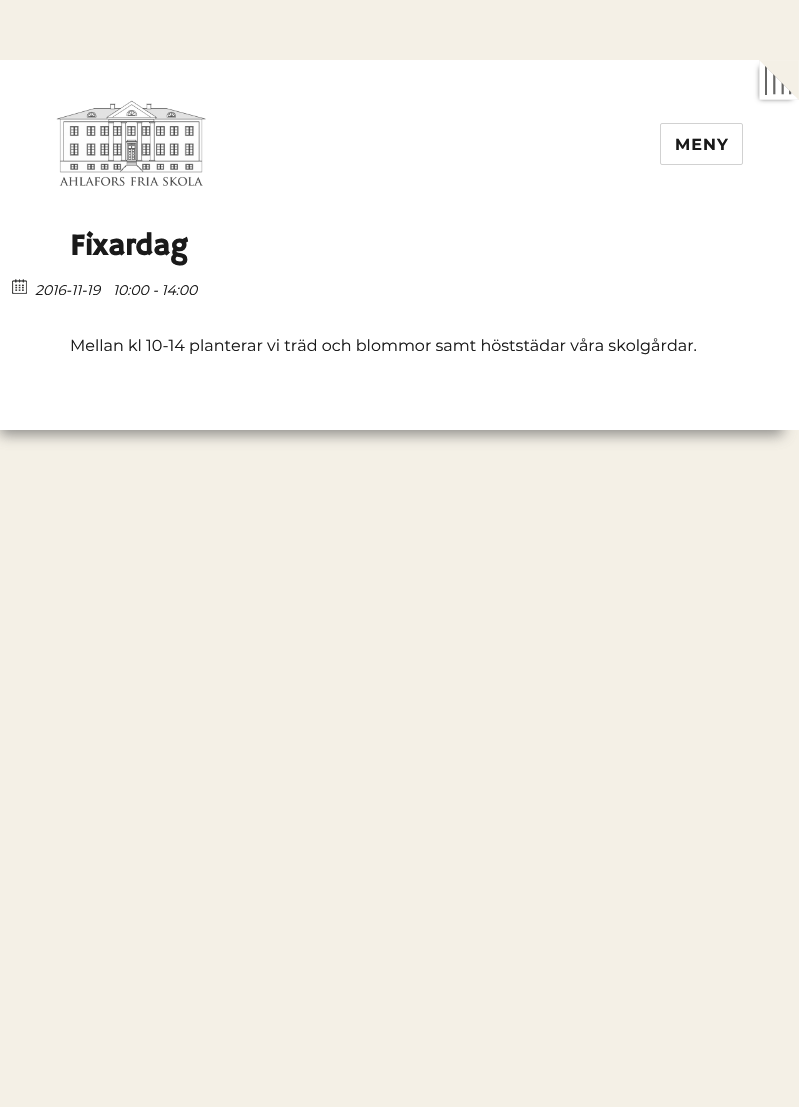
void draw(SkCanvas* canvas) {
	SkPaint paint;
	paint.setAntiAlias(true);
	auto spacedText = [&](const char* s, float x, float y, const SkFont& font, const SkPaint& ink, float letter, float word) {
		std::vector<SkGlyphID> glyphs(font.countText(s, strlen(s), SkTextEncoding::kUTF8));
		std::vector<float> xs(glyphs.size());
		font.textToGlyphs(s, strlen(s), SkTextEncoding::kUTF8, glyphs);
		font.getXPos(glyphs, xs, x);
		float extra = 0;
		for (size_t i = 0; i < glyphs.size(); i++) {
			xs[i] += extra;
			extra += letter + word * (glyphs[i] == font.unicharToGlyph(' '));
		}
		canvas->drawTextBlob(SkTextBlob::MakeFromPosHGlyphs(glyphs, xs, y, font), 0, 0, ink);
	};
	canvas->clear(0xfff4f0e6);
	paint.setColor(0xb3656565);
	paint.setMaskFilter(SkMaskFilter::MakeBlur(kNormal_SkBlurStyle, 6.5));
	canvas->drawRect(SkRect::MakeXYWH(0, 81, 783, 354), paint);
	paint.setMaskFilter(nullptr);
	paint.setColor(0xffffffff);
	canvas->drawRect(SkRect::MakeXYWH(0, 60, 799, 370), paint);
	paint.setColor(0xff656565);
	paint.setMaskFilter(SkMaskFilter::MakeBlur(kNormal_SkBlurStyle, 2.5));
	canvas->drawRect(SkRect::MakeXYWH(760, 67, 32, 32), paint);
	paint.setMaskFilter(nullptr);
	canvas->drawImageRect(SkImages::DeferredFromEncodedData(SkData::MakeFromFileName("img1.png")), SkRect::MakeXYWH(759, 60, 40, 40), SkSamplingOptions());
	canvas->drawImageRect(SkImages::DeferredFromEncodedData(SkData::MakeFromFileName("img2.png")), SkRect::MakeXYWH(56, 100, 150, 86), SkSamplingOptions());
	paint.setStroke(true);
	paint.setStrokeWidth(1);
	paint.setColor(0xffd1d1d1);
	canvas->drawRoundRect(SkRect::MakeXYWH(660.5, 123.5, 82, 41), 1.5, 1.5, paint);
	SkFont f1(fontMgr->matchFamilyStyle("Montserrat", SkFontStyle::Bold()), 16);
	f1.setSubpixel(true);
	paint.setStroke(false);
	paint.setColor(0xff1a1a1a);
	spacedText("MENY", 675, 150, f1, paint, 1, 0);
	SkFont f2(fontMgr->matchFamilyStyle("Hammersmith One", SkFontStyle::Bold()), 30);
	f2.setSubpixel(true);
	canvas->drawString("Fixardag", 70, 255, f2, paint);
	canvas->drawImageRect(SkImages::DeferredFromEncodedData(SkData::MakeFromFileName("img3.png")), SkRect::MakeXYWH(12, 279, 15, 15), SkSamplingOptions());
	SkFont f3(fontMgr->matchFamilyStyle("Montserrat", SkFontStyle::Italic()), 14);
	f3.setSubpixel(true);
	canvas->drawString("2016-11-19", 35, 295, f3, paint);
	canvas->drawString("10:00 - 14:00", 113, 295, f3, paint);
	SkFont f4(fontMgr->matchFamilyStyle("Montserrat", SkFontStyle::Normal()), 16);
	f4.setSubpixel(true);
	canvas->drawString("Mellan kl 10-14 planterar vi träd och blommor samt höststädar våra skolgårdar.", 70, 351, f4, paint);
}
